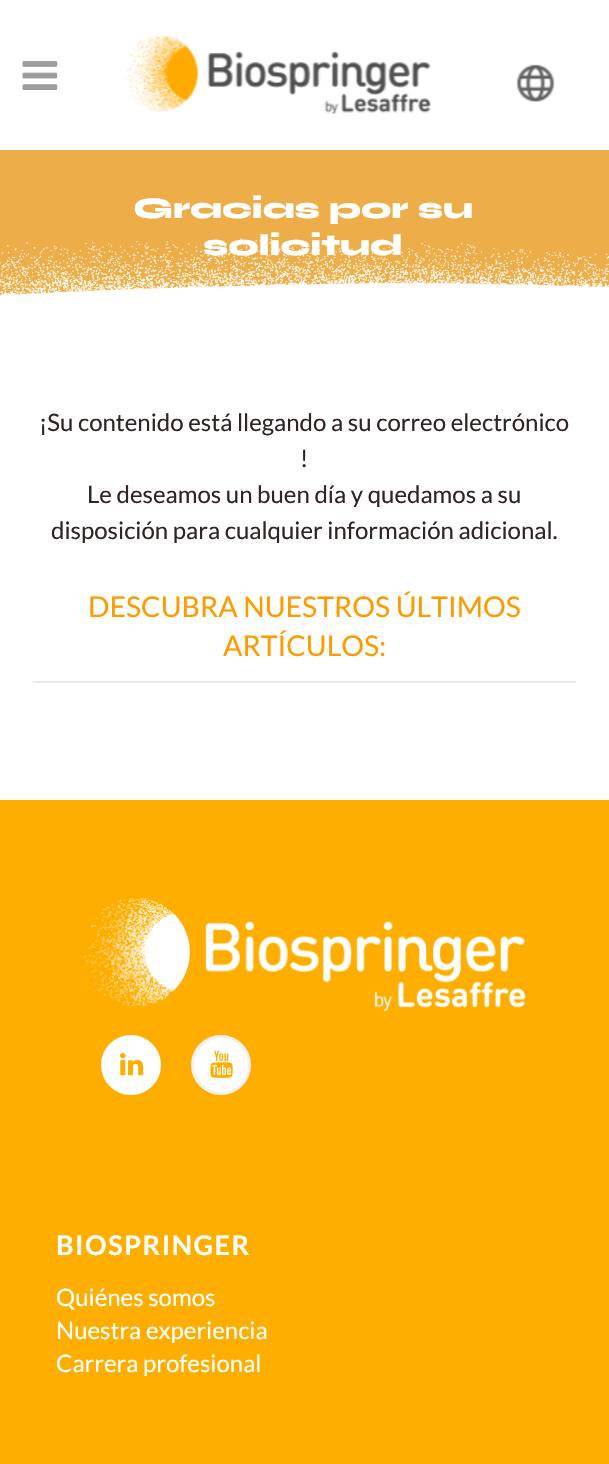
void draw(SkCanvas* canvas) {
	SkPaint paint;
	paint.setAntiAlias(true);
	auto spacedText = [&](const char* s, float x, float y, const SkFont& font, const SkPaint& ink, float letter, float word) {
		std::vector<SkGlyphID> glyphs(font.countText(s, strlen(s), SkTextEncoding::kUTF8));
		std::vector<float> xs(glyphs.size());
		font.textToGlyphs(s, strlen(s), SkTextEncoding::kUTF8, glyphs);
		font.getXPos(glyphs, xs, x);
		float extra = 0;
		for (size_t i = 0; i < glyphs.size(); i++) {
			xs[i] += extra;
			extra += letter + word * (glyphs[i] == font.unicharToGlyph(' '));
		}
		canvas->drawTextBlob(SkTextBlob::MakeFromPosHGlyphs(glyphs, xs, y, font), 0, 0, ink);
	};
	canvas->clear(0xffffffff);
	canvas->drawImageRect(SkImages::DeferredFromEncodedData(SkData::MakeFromFileName("img1.png")), SkRect::MakeXYWH(22, 61, 36, 29), SkSamplingOptions());
	canvas->drawImageRect(SkImages::DeferredFromEncodedData(SkData::MakeFromFileName("img2.png")), SkRect::MakeXYWH(124, 36, 307, 78), SkSamplingOptions());
	canvas->drawImageRect(SkImages::DeferredFromEncodedData(SkData::MakeFromFileName("img3.png")), SkRect::MakeXYWH(516, 64, 39, 38), SkSamplingOptions());
	canvas->drawImageRect(SkImages::DeferredFromEncodedData(SkData::MakeFromFileName("img4.png")), SkRect::MakeXYWH(0, 150, 609, 146), SkSamplingOptions());
	SkFont f1(fontMgr->matchFamilyStyle("Syne", SkFontStyle(800, SkFontStyle::kNormal_Width, SkFontStyle::kUpright_Slant)), 30);
	f1.setSubpixel(true);
	paint.setColor(0xffffffff);
	canvas->drawString("Gracias por su", 133, 218, f1, paint);
	canvas->drawString("solicitud", 203, 255, f1, paint);
	SkFont f2(fontMgr->matchFamilyStyle("Lato", SkFontStyle::Normal()), 24);
	f2.setSubpixel(true);
	paint.setColor(0xff302424);
	canvas->drawString("¡Su contenido está llegando a su correo electrónico", 39, 431, f2, paint);
	canvas->drawString("!", 300, 467, f2, paint);
	canvas->drawString("Le deseamos un buen día y quedamos a su", 87, 503, f2, paint);
	canvas->drawString("disposición para cualquier información adicional.", 51, 539, f2, paint);
	SkFont f3(fontMgr->matchFamilyStyle("Lato", SkFontStyle::Normal()), 28.5);
	f3.setSubpixel(true);
	paint.setColor(0xffff9a00);
	canvas->drawString("DESCUBRA NUESTROS ÚLTIMOS", 88, 617, f3, paint);
	canvas->drawString("ARTÍCULOS:", 223, 656, f3, paint);
	paint.setColor(0xffeaeaea);
	canvas->drawRect(SkRect::MakeXYWH(33, 681, 543, 2), paint);
	paint.setColor(0xfffdae00);
	canvas->drawRect(SkRect::MakeXYWH(0, 800, 609, 664), paint);
	canvas->drawImageRect(SkImages::DeferredFromEncodedData(SkData::MakeFromFileName("img5.png")), SkRect::MakeXYWH(83, 898, 443, 114), SkSamplingOptions());
	paint.setColor(0xffffffff);
	canvas->drawCircle(131, 1065, 28.5, paint);
	paint.setStroke(true);
	paint.setStrokeWidth(3);
	canvas->drawCircle(131, 1065, 28.5, paint);
	canvas->drawImageRect(SkImages::DeferredFromEncodedData(SkData::MakeFromFileName("img6.png")), SkRect::MakeXYWH(120, 1053, 24, 23), SkSamplingOptions());
	paint.setStroke(false);
	canvas->drawCircle(221, 1065, 28.5, paint);
	paint.setStroke(true);
	paint.setColor(0xfff0f0f0);
	canvas->drawCircle(221, 1065, 28.5, paint);
	canvas->drawImageRect(SkImages::DeferredFromEncodedData(SkData::MakeFromFileName("img7.png")), SkRect::MakeXYWH(210, 1050, 23, 28), SkSamplingOptions());
	SkFont f4(fontMgr->matchFamilyStyle("Lato", SkFontStyle::Bold()), 27);
	f4.setSubpixel(true);
	paint.setStroke(false);
	paint.setColor(0xffffffff);
	spacedText("BIOSPRINGER", 56, 1255, f4, paint, 1.5, 0);
	canvas->drawString("Quiénes somos", 56, 1306, f2, paint);
	canvas->drawString("Nuestra experiencia", 56, 1339, f2, paint);
	canvas->drawString("Carrera profesional", 56, 1372, f2, paint);
}
